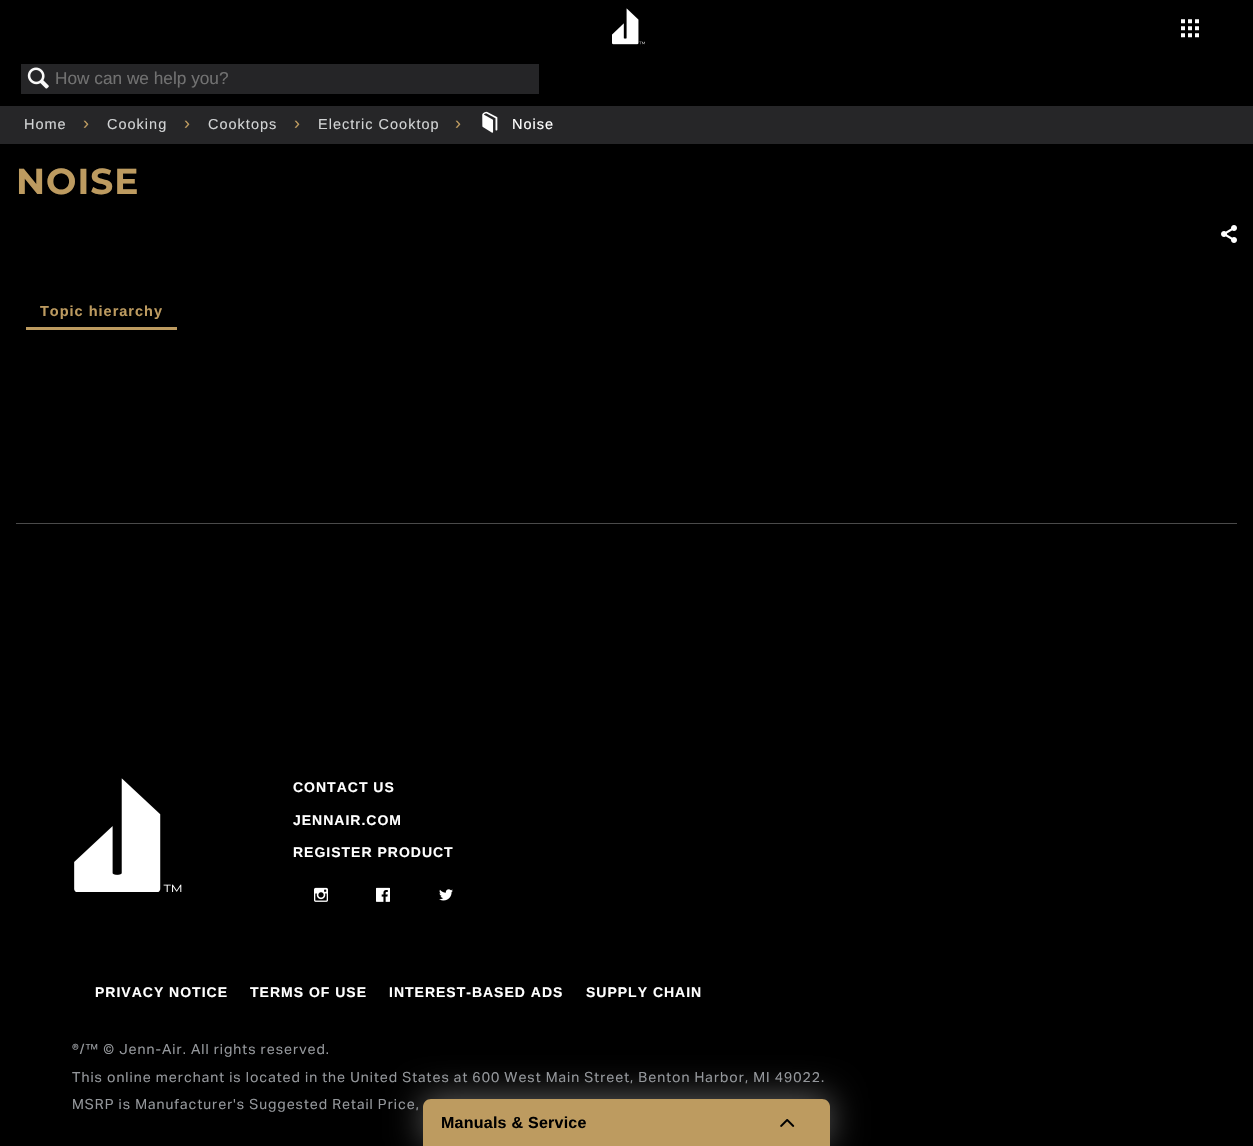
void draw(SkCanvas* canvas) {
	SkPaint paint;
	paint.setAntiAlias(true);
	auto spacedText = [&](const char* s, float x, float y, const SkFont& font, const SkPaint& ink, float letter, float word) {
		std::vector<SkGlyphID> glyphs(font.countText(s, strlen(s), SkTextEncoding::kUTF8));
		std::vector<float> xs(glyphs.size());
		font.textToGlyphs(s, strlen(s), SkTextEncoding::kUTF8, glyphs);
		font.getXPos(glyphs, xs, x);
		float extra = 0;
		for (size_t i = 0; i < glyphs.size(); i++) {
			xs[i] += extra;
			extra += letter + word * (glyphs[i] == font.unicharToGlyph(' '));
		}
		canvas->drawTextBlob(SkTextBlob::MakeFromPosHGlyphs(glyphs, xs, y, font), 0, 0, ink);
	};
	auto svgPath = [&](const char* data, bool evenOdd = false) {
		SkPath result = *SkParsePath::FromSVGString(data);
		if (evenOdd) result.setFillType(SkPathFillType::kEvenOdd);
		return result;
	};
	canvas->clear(0xff000000);
	canvas->drawImageRect(SkImages::DeferredFromEncodedData(SkData::MakeFromFileName("img1.png")), SkRect::MakeXYWH(612, 8, 33, 37), SkSamplingOptions());
	canvas->drawImageRect(SkImages::DeferredFromEncodedData(SkData::MakeFromFileName("img2.png")), SkRect::MakeXYWH(1181, 19, 18, 19), SkSamplingOptions());
	paint.setColor(0xff252527);
	canvas->drawRect(SkRect::MakeXYWH(21, 64, 518, 30), paint);
	canvas->drawImageRect(SkImages::DeferredFromEncodedData(SkData::MakeFromFileName("img3.png")), SkRect::MakeXYWH(27, 67, 22, 22), SkSamplingOptions());
	SkFont f1(fontMgr->matchFamilyStyle("Liberation Sans", SkFontStyle::Normal()), 17.25);
	f1.setSubpixel(true);
	paint.setColor(0xff717171);
	canvas->drawString("How can we help you?", 55, 84, f1, paint);
	paint.setColor(0xff262628);
	canvas->drawRect(SkRect::MakeXYWH(0, 106, 1253, 38), paint);
	SkFont f2(fontMgr->matchFamilyStyle("Liberation Sans", SkFontStyle::Normal()), 14.5);
	f2.setSubpixel(true);
	paint.setColor(0xffd1d3d4);
	spacedText("Home", 24, 129, f2, paint, 1, 0);
	SkFont f3(fontMgr->matchFamilyStyle("Liberation Sans", SkFontStyle::Normal()), 18);
	f3.setSubpixel(true);
	paint.setColor(0xffbd9b60);
	spacedText("›", 83, 129, f3, paint, 1, 0);
	paint.setColor(0xffd1d3d4);
	spacedText("Cooking", 107, 129, f2, paint, 1, 0);
	paint.setColor(0xffbd9b60);
	spacedText("›", 184, 129, f3, paint, 1, 0);
	paint.setColor(0xffd1d3d4);
	spacedText("Cooktops", 208, 129, f2, paint, 1, 0);
	paint.setColor(0xffbd9b60);
	spacedText("›", 294, 129, f3, paint, 1, 0);
	paint.setColor(0xffd1d3d4);
	spacedText("Electric Cooktop", 318, 129, f2, paint, 1, 0);
	paint.setColor(0xffbd9b60);
	spacedText("›", 455, 129, f3, paint, 1, 0);
	canvas->drawImageRect(SkImages::DeferredFromEncodedData(SkData::MakeFromFileName("img4.png")), SkRect::MakeXYWH(482, 111, 16, 22), SkSamplingOptions());
	paint.setColor(0xffffffff);
	spacedText("Noise", 512, 129, f2, paint, 1, 0);
	SkFont f4(fontMgr->matchFamilyStyle("Montserrat", SkFontStyle::Bold()), 36);
	f4.setSubpixel(true);
	paint.setColor(0xffbd9b60);
	spacedText("NOISE", 16, 194, f4, paint, 1, 0);
	canvas->drawImageRect(SkImages::DeferredFromEncodedData(SkData::MakeFromFileName("img5.png")), SkRect::MakeXYWH(1221, 225, 16, 18), SkSamplingOptions());
	canvas->drawRect(SkRect::MakeXYWH(26, 327, 151, 3), paint);
	SkFont f5(fontMgr->matchFamilyStyle("Liberation Sans", SkFontStyle::Bold()), 14.5);
	f5.setSubpixel(true);
	spacedText("Topic hierarchy", 40, 316, f5, paint, 1, 0);
	canvas->drawPath(svgPath("M431 1099H822C826.5 1099 830 1102.5 830 1107V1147H423V1107C423 1102.5 426.5 1099 431 1099Z"), paint);
	canvas->save();
	canvas->clipPath(svgPath("M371 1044H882V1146H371ZM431 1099H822C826.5 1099 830 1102.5 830 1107V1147H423V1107C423 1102.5 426.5 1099 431 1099Z", true), true);
	paint.setColor(0x59ffffff);
	paint.setMaskFilter(SkMaskFilter::MakeBlur(kNormal_SkBlurStyle, 17));
	canvas->drawRoundRect(SkRect::MakeXYWH(423, 1096, 407, 48), 8, 8, paint);
	paint.setMaskFilter(nullptr);
	canvas->restore();
	SkFont f6(fontMgr->matchFamilyStyle("Liberation Sans", SkFontStyle::Bold()), 16);
	f6.setSubpixel(true);
	paint.setColor(0xff000000);
	spacedText("Manuals & Service", 441, 1128, f6, paint, 0.25, 0);
	canvas->drawImageRect(SkImages::DeferredFromEncodedData(SkData::MakeFromFileName("img6.png")), SkRect::MakeXYWH(780, 1119, 15, 8), SkSamplingOptions());
	paint.setColor(0xff4a4a4a);
	canvas->drawRect(SkRect::MakeXYWH(16, 523, 1221, 1), paint);
	canvas->drawImageRect(SkImages::DeferredFromEncodedData(SkData::MakeFromFileName("img7.png")), SkRect::MakeXYWH(74, 778, 108, 114), SkSamplingOptions());
	SkFont f7(fontMgr->matchFamilyStyle("Liberation Sans", SkFontStyle::Bold()), 14);
	f7.setSubpixel(true);
	paint.setColor(0xffffffff);
	spacedText("CONTACT US", 293, 792, f7, paint, 1, 0);
	spacedText("JENNAIR.COM", 293, 825, f7, paint, 1, 0);
	spacedText("REGISTER PRODUCT", 293, 857, f7, paint, 1, 0);
	canvas->drawImageRect(SkImages::DeferredFromEncodedData(SkData::MakeFromFileName("img8.png")), SkRect::MakeXYWH(314, 887, 14, 15), SkSamplingOptions());
	canvas->drawImageRect(SkImages::DeferredFromEncodedData(SkData::MakeFromFileName("img9.png")), SkRect::MakeXYWH(376, 887, 14, 15), SkSamplingOptions());
	canvas->drawImageRect(SkImages::DeferredFromEncodedData(SkData::MakeFromFileName("img10.png")), SkRect::MakeXYWH(439, 889, 14, 12), SkSamplingOptions());
	spacedText("PRIVACY NOTICE", 95, 997, f7, paint, 1, 0);
	spacedText("TERMS OF USE", 250, 997, f7, paint, 1, 0);
	spacedText("INTEREST-BASED ADS", 389, 997, f7, paint, 1, 0);
	spacedText("SUPPLY CHAIN", 586, 997, f7, paint, 1, 0);
	SkFont f8(fontMgr->matchFamilyStyle("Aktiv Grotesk", SkFontStyle::Normal()), 14);
	f8.setSubpixel(true);
	paint.setColor(0xff94979b);
	spacedText("®/™ © Jenn-Air. All rights reserved.", 72, 1054, f8, paint, 1, 0);
	spacedText("This online merchant is located in the United States at 600 West Main Street, Benton Harbor, MI 49022.", 72, 1082, f8, paint, 1, 0);
	spacedText("MSRP is Manufacturer's Suggested Retail Price,", 72, 1109, f8, paint, 1, 0);
}
